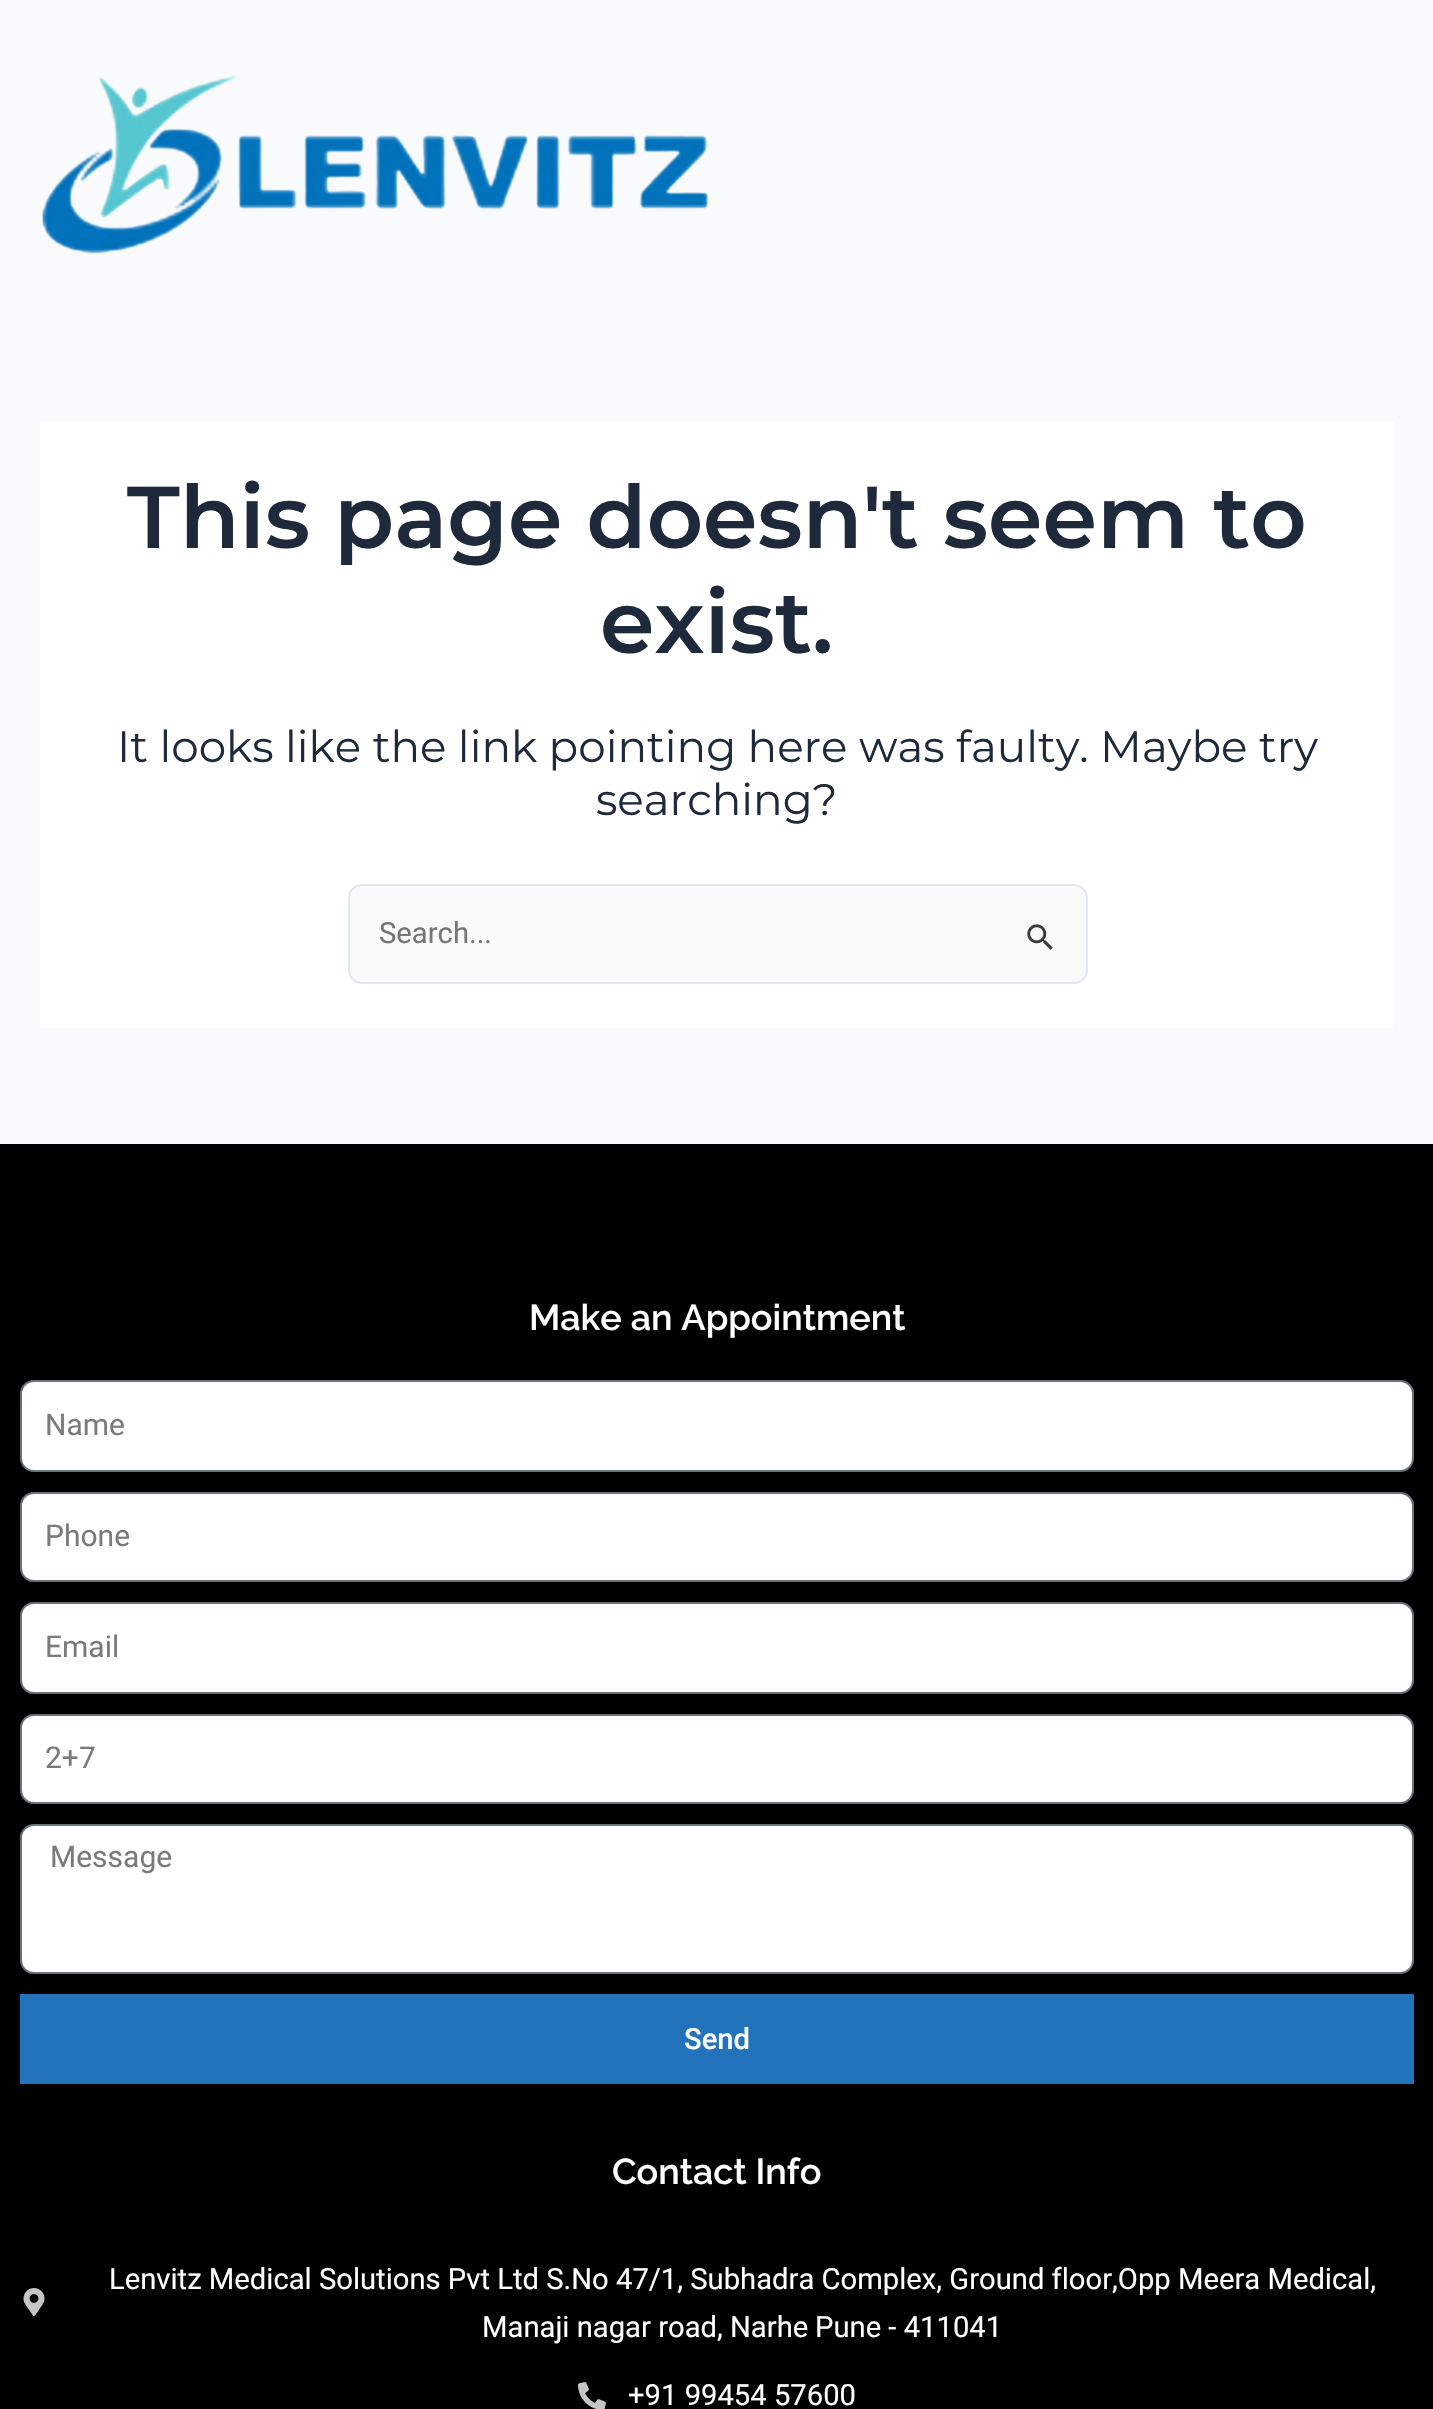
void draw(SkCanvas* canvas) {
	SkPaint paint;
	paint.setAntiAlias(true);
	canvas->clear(0xfff9fafb);
	canvas->drawImageRect(SkImages::DeferredFromEncodedData(SkData::MakeFromFileName("img1.png")), SkRect::MakeXYWH(42, 75, 666, 179), SkSamplingOptions());
	paint.setColor(0xffffffff);
	canvas->drawRect(SkRect::MakeXYWH(40, 422, 1354, 606), paint);
	SkFont f1(fontMgr->matchFamilyStyle("Montserrat", SkFontStyle(600, SkFontStyle::kNormal_Width, SkFontStyle::kUpright_Slant)), 87.5);
	f1.setSubpixel(true);
	paint.setColor(0xff1e293b);
	canvas->drawString("This page doesn't seem to", 127, 548, f1, paint);
	canvas->drawString("exist.", 600, 653, f1, paint);
	SkFont f2(fontMgr->matchFamilyStyle("Montserrat", SkFontStyle::Normal()), 43.75);
	f2.setSubpixel(true);
	canvas->drawString("It looks like the link pointing here was faulty. Maybe try", 117, 762, f2, paint);
	canvas->drawString("searching?", 596, 815, f2, paint);
	paint.setColor(0xfffafafa);
	canvas->drawRoundRect(SkRect::MakeXYWH(349, 885, 738, 98), 13, 13, paint);
	paint.setStroke(true);
	paint.setStrokeWidth(2);
	paint.setColor(0xffe2e8f0);
	canvas->drawRoundRect(SkRect::MakeXYWH(349, 885, 738, 98), 13, 13, paint);
	SkFont f3(fontMgr->matchFamilyStyle("Roboto", SkFontStyle::Normal()), 29.2);
	f3.setSubpixel(true);
	paint.setStroke(false);
	paint.setColor(0xff757575);
	canvas->drawString("Search...", 379, 943, f3, paint);
	canvas->drawImageRect(SkImages::DeferredFromEncodedData(SkData::MakeFromFileName("img2.png")), SkRect::MakeXYWH(1027, 924, 26, 26), SkSamplingOptions());
	paint.setColor(0xff000000);
	canvas->drawRect(SkRect::MakeXYWH(0, 1144, 1433, 1265), paint);
	SkFont f4(fontMgr->matchFamilyStyle("Raleway", SkFontStyle(600, SkFontStyle::kNormal_Width, SkFontStyle::kUpright_Slant)), 36);
	f4.setSubpixel(true);
	paint.setColor(0xffffffff);
	canvas->drawString("Make an Appointment", 529, 1330, f4, paint);
	canvas->drawRoundRect(SkRect::MakeXYWH(21, 1381, 1392, 90), 13, 13, paint);
	paint.setStroke(true);
	paint.setColor(0xff69727d);
	canvas->drawRoundRect(SkRect::MakeXYWH(21, 1381, 1392, 90), 13, 13, paint);
	SkFont f5(fontMgr->matchFamilyStyle("Roboto", SkFontStyle::Normal()), 30);
	f5.setSubpixel(true);
	paint.setStroke(false);
	paint.setColor(0xff797a7c);
	canvas->drawString("Name", 45, 1435, f5, paint);
	paint.setColor(0xffffffff);
	canvas->drawRoundRect(SkRect::MakeXYWH(21, 1493, 1392, 88), 13, 13, paint);
	paint.setStroke(true);
	paint.setColor(0xff69727d);
	canvas->drawRoundRect(SkRect::MakeXYWH(21, 1493, 1392, 88), 13, 13, paint);
	paint.setStroke(false);
	paint.setColor(0xff797a7c);
	canvas->drawString("Phone", 45, 1546, f5, paint);
	paint.setColor(0xffffffff);
	canvas->drawRoundRect(SkRect::MakeXYWH(21, 1603, 1392, 90), 13, 13, paint);
	paint.setStroke(true);
	paint.setColor(0xff69727d);
	canvas->drawRoundRect(SkRect::MakeXYWH(21, 1603, 1392, 90), 13, 13, paint);
	paint.setStroke(false);
	paint.setColor(0xff797a7c);
	canvas->drawString("Email", 45, 1657, f5, paint);
	paint.setColor(0xffffffff);
	canvas->drawRoundRect(SkRect::MakeXYWH(21, 1715, 1392, 88), 13, 13, paint);
	paint.setStroke(true);
	paint.setColor(0xff69727d);
	canvas->drawRoundRect(SkRect::MakeXYWH(21, 1715, 1392, 88), 13, 13, paint);
	paint.setStroke(false);
	paint.setColor(0xff797a7c);
	canvas->drawString("2+7", 45, 1768, f5, paint);
	paint.setColor(0xffffffff);
	canvas->drawRoundRect(SkRect::MakeXYWH(21, 1825, 1392, 148), 13, 13, paint);
	paint.setStroke(true);
	paint.setColor(0xff69727d);
	canvas->drawRoundRect(SkRect::MakeXYWH(21, 1825, 1392, 148), 13, 13, paint);
	paint.setStroke(false);
	paint.setColor(0xff797a7c);
	canvas->drawString("Message", 50, 1867, f5, paint);
	paint.setColor(0xff2372bc);
	canvas->drawRect(SkRect::MakeXYWH(20, 1994, 1394, 90), paint);
	SkFont f6(fontMgr->matchFamilyStyle("Roboto", SkFontStyle(500, SkFontStyle::kNormal_Width, SkFontStyle::kUpright_Slant)), 29.2);
	f6.setSubpixel(true);
	paint.setColor(0xffffffff);
	canvas->drawString("Send", 684, 2049, f6, paint);
	canvas->drawString("Contact Info", 612, 2184, f4, paint);
	canvas->drawImageRect(SkImages::DeferredFromEncodedData(SkData::MakeFromFileName("img3.png")), SkRect::MakeXYWH(23, 2288, 22, 28), SkSamplingOptions());
	canvas->drawString("Lenvitz Medical Solutions Pvt Ltd S.No 47/1, Subhadra Complex, Ground floor,Opp Meera Medical,", 109, 2289, f3, paint);
	canvas->drawString("Manaji nagar road, Narhe", 482, 2337, f3, paint);
	canvas->drawString("Pune - 411041", 815, 2337, f3, paint);
	canvas->drawImageRect(SkImages::DeferredFromEncodedData(SkData::MakeFromFileName("img4.png")), SkRect::MakeXYWH(578, 2382, 28, 27), SkSamplingOptions());
	canvas->drawString("+91 99454 57600", 628, 2405, f3, paint);
}
